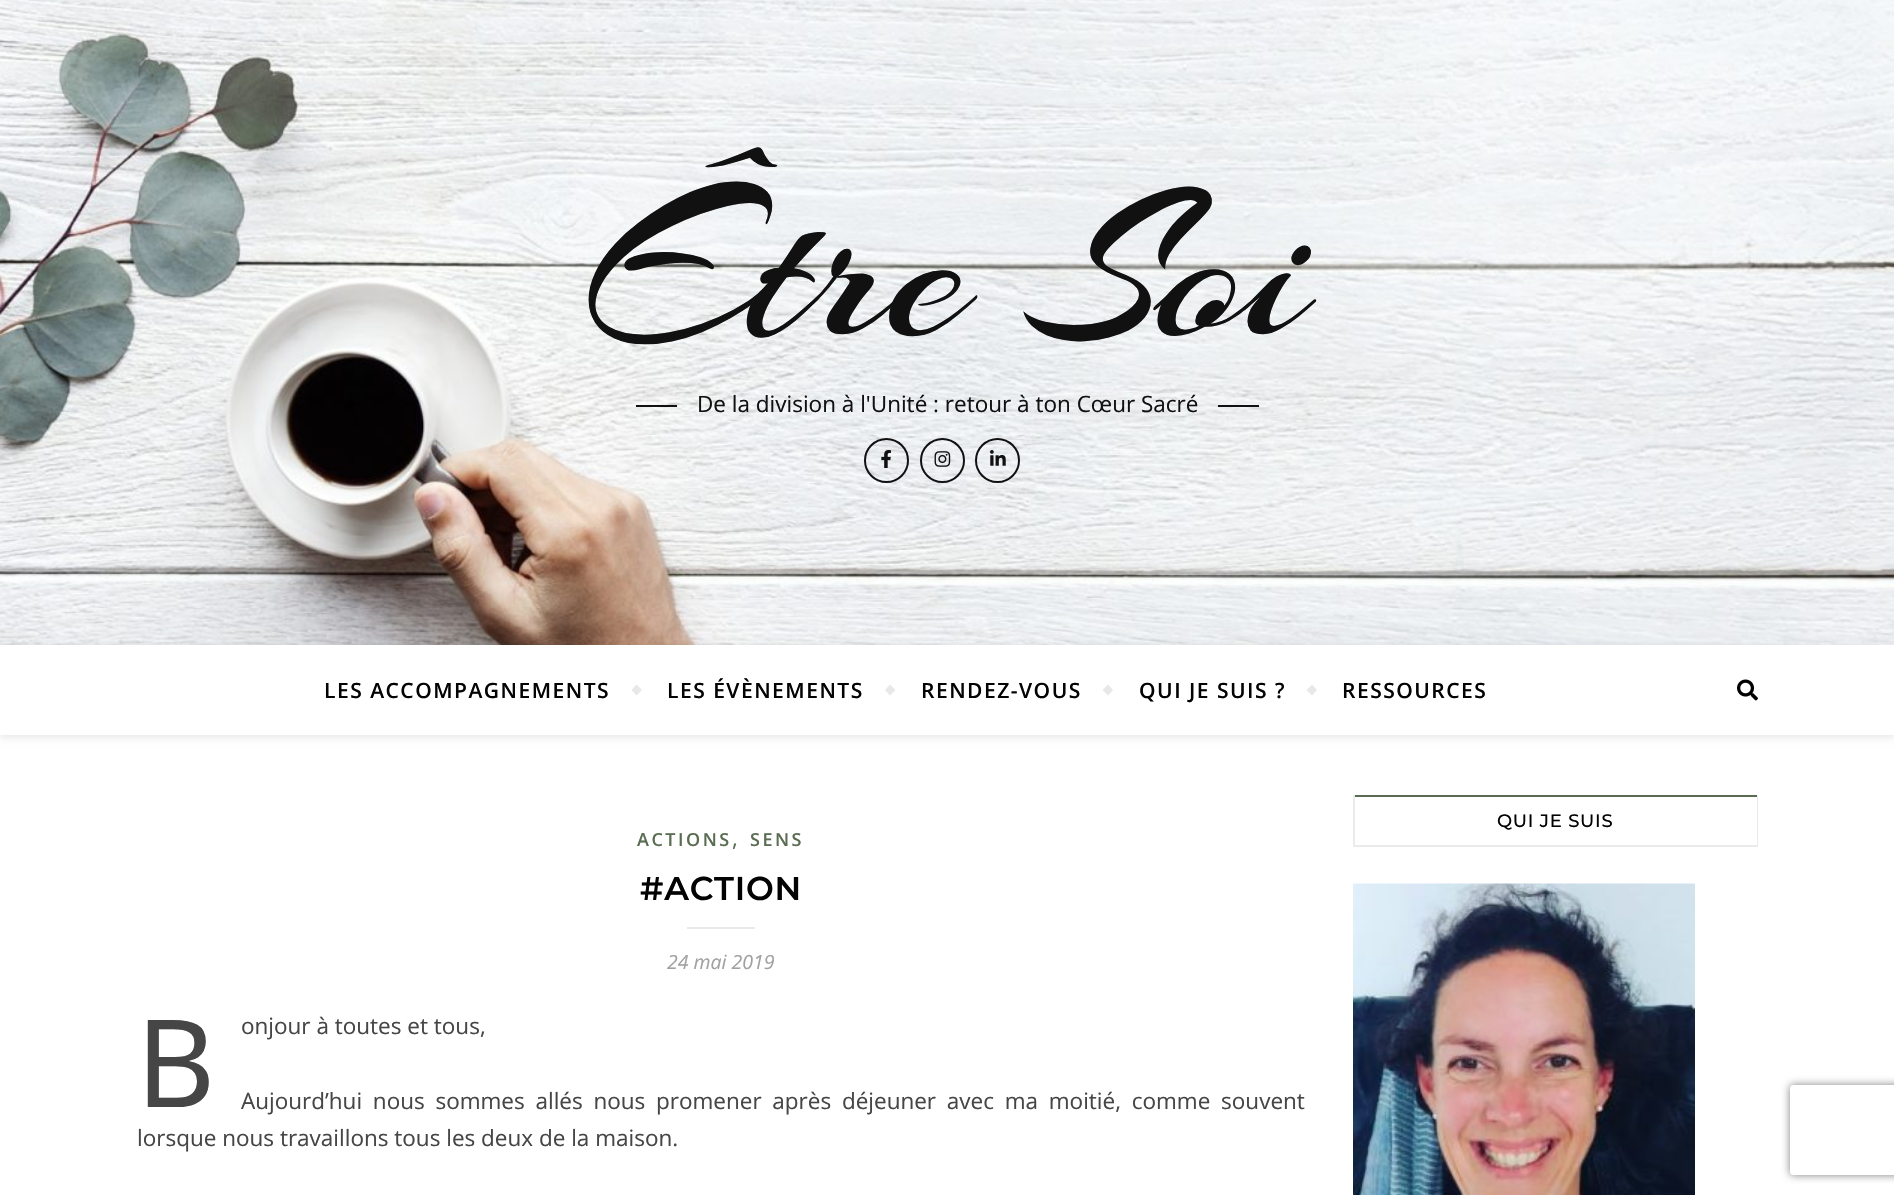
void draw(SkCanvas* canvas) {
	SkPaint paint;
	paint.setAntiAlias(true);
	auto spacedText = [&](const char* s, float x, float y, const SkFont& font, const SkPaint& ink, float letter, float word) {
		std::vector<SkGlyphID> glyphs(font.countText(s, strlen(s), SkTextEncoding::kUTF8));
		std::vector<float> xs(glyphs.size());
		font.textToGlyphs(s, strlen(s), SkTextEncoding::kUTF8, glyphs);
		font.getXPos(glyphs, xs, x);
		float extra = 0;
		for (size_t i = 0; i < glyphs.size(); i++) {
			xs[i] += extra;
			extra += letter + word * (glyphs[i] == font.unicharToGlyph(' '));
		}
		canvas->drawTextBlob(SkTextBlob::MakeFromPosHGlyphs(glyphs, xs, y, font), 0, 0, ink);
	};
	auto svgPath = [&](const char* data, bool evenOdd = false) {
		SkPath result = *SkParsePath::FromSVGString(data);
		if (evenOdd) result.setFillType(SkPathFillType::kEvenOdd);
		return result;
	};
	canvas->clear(0xffffffff);
	canvas->drawImageRect(SkImages::DeferredFromEncodedData(SkData::MakeFromFileName("img1.png")), SkRect::MakeXYWH(0, 0, 1894, 645), SkSamplingOptions());
	SkFont f1(fontMgr->matchFamilyStyle("Arizonia", SkFontStyle::Normal()), 225);
	f1.setSubpixel(true);
	paint.setColor(0xff111111);
	canvas->drawString("Être Soi", 585, 334, f1, paint);
	canvas->drawRect(SkRect::MakeXYWH(636, 405, 41, 2), paint);
	SkFont f2(fontMgr->matchFamilyStyle("Open Sans", SkFontStyle::Normal()), 22.5);
	f2.setSubpixel(true);
	canvas->drawString("De la division à l'Unité : retour à ton Cœur Sacré", 697, 412, f2, paint);
	canvas->drawRect(SkRect::MakeXYWH(1218, 405, 41, 2), paint);
	paint.setStroke(true);
	paint.setStrokeWidth(2);
	canvas->drawCircle(886.5, 460.5, 21.5, paint);
	canvas->drawImageRect(SkImages::DeferredFromEncodedData(SkData::MakeFromFileName("img2.png")), SkRect::MakeXYWH(881, 450, 10, 18), SkSamplingOptions());
	canvas->drawCircle(942.5, 460.5, 21.5, paint);
	canvas->drawImageRect(SkImages::DeferredFromEncodedData(SkData::MakeFromFileName("img3.png")), SkRect::MakeXYWH(934, 451, 17, 16), SkSamplingOptions());
	canvas->drawCircle(997.5, 460.5, 21.5, paint);
	canvas->drawImageRect(SkImages::DeferredFromEncodedData(SkData::MakeFromFileName("img4.png")), SkRect::MakeXYWH(990, 450, 16, 16), SkSamplingOptions());
	canvas->save();
	canvas->clipPath(svgPath("M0 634H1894V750H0ZM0 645H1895V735H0Z", true), true);
	paint.setStroke(false);
	paint.setColor(0x1a000000);
	paint.setMaskFilter(SkMaskFilter::MakeBlur(kNormal_SkBlurStyle, 4));
	canvas->drawRect(SkRect::MakeXYWH(0, 647, 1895, 90), paint);
	paint.setMaskFilter(nullptr);
	canvas->restore();
	SkFont f3(fontMgr->matchFamilyStyle("Open Sans", SkFontStyle(600, SkFontStyle::kNormal_Width, SkFontStyle::kUpright_Slant)), 21);
	f3.setSubpixel(true);
	paint.setColor(0xff030303);
	spacedText("LES ACCOMPAGNEMENTS", 324, 698, f3, paint, 1.5, 0);
	paint.setColor(0xffe8e8e8);
	canvas->drawPath(svgPath("M631.5 690L636.5 684.5L642 690L636.5 695.5Z"), paint);
	paint.setColor(0xff030303);
	spacedText("LES ÉVÈNEMENTS", 667, 698, f3, paint, 1.5, 0);
	paint.setColor(0xffe8e8e8);
	canvas->drawPath(svgPath("M885 690L890 684.5L895.5 690L890 695.5Z"), paint);
	paint.setColor(0xff030303);
	spacedText("RENDEZ-VOUS", 921, 698, f3, paint, 1.5, 0);
	paint.setColor(0xffe8e8e8);
	canvas->drawPath(svgPath("M1102.5 690L1108 684.5L1113 690L1108 695.5Z"), paint);
	paint.setColor(0xff030303);
	spacedText("QUI JE SUIS ?", 1139, 698, f3, paint, 1.5, 0);
	paint.setColor(0xffe8e8e8);
	canvas->drawPath(svgPath("M1306.5 690L1312 684.5L1317 690L1312 695.5Z"), paint);
	paint.setColor(0xff030303);
	spacedText("RESSOURCES", 1342, 698, f3, paint, 1.5, 0);
	canvas->drawImageRect(SkImages::DeferredFromEncodedData(SkData::MakeFromFileName("img5.png")), SkRect::MakeXYWH(1737, 679, 21, 22), SkSamplingOptions());
	paint.setColor(0xff5a6d52);
	canvas->drawRect(SkRect::MakeXYWH(1353, 795, 405, 2), paint);
	paint.setColor(0xffebebeb);
	canvas->drawRect(SkRect::MakeXYWH(1757, 795, 1, 51), paint);
	canvas->drawRect(SkRect::MakeXYWH(1353, 845, 405, 2), paint);
	canvas->drawRect(SkRect::MakeXYWH(1353, 795, 2, 51), paint);
	SkFont f4(fontMgr->matchFamilyStyle("Montserrat", SkFontStyle(500, SkFontStyle::kNormal_Width, SkFontStyle::kUpright_Slant)), 18);
	f4.setSubpixel(true);
	paint.setColor(0xff030303);
	spacedText("QUI JE SUIS", 1497, 827, f4, paint, 0.75, 0);
	canvas->drawImageRect(SkImages::DeferredFromEncodedData(SkData::MakeFromFileName("img6.png")), SkRect::MakeXYWH(1353, 883, 342, 312), SkSamplingOptions());
	SkFont f5(fontMgr->matchFamilyStyle("Open Sans", SkFontStyle(600, SkFontStyle::kNormal_Width, SkFontStyle::kUpright_Slant)), 18);
	f5.setSubpixel(true);
	paint.setColor(0xff5a6d52);
	spacedText("ACTIONS", 637, 846, f5, paint, 2.5, 0);
	canvas->drawString(",", 732, 846, f2, paint);
	spacedText("SENS", 750, 846, f5, paint, 2.5, 0);
	SkFont f6(fontMgr->matchFamilyStyle("Montserrat", SkFontStyle(600, SkFontStyle::kNormal_Width, SkFontStyle::kUpright_Slant)), 33);
	f6.setSubpixel(true);
	paint.setColor(0xff030303);
	spacedText("#ACTION", 640, 900, f6, paint, 0.75, 0);
	paint.setColor(0xffe8e8e8);
	canvas->drawRect(SkRect::MakeXYWH(687, 927, 68, 2), paint);
	SkFont f7(fontMgr->matchFamilyStyle("Open Sans", SkFontStyle::Italic()), 19.5);
	f7.setSubpixel(true);
	paint.setColor(0xffa1a1a1);
	canvas->drawString("24 mai 2019", 667, 969, f7, paint);
	SkFont f8(fontMgr->matchFamilyStyle("Noto Sans", SkFontStyle::Normal()), 122);
	f8.setSubpixel(true);
	paint.setColor(0xff464646);
	canvas->drawString("B", 136, 1107, f8, paint);
	canvas->drawString("onjour à toutes et tous,", 241, 1034, f2, paint);
	spacedText("Aujourd’hui nous sommes allés nous promener après déjeuner avec ma moitié, comme souvent", 241, 1109, f2, paint, 0, 4.9);
	canvas->drawString("lorsque nous travaillons tous les deux de la maison.", 137, 1146, f2, paint);
	canvas->save();
	canvas->clipPath(svgPath("M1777 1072H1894V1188H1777ZM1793 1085H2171C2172.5 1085 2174 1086.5 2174 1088V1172C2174 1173.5 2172.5 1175 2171 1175H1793C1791.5 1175 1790 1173.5 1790 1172V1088C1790 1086.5 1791.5 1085 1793 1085Z", true), true);
	paint.setColor(0xff808080);
	paint.setMaskFilter(SkMaskFilter::MakeBlur(kNormal_SkBlurStyle, 4));
	canvas->drawRoundRect(SkRect::MakeXYWH(1790, 1085, 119, 90), 3, 3, paint);
	paint.setMaskFilter(nullptr);
	canvas->restore();
}
